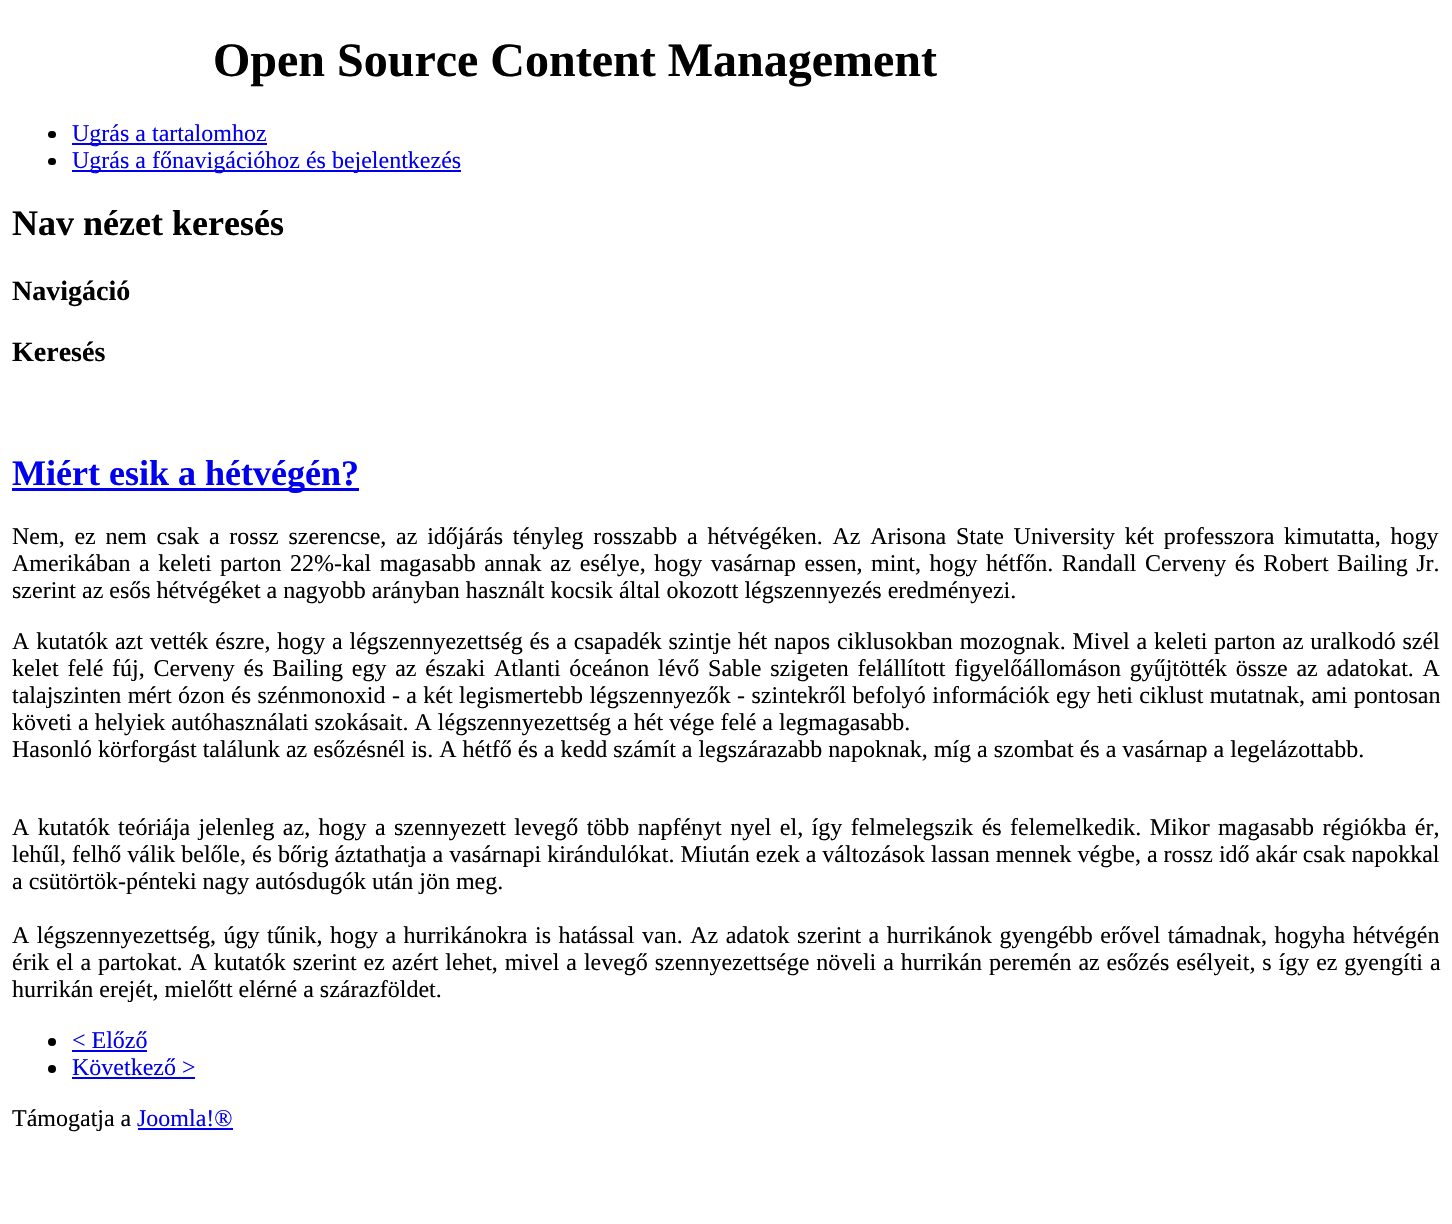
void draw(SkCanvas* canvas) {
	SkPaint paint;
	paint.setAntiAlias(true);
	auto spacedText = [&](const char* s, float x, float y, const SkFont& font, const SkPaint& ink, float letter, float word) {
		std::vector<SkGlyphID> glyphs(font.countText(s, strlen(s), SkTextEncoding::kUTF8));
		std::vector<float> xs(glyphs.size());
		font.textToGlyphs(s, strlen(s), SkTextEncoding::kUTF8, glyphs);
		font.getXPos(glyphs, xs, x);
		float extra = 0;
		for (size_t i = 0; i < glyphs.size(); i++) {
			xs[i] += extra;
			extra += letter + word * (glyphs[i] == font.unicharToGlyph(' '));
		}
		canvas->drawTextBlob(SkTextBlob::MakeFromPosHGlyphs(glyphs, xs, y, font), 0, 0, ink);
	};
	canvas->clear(0xffffffff);
	SkFont f1(fontMgr->matchFamilyStyle("Liberation Serif", SkFontStyle::Bold()), 48);
	f1.setSubpixel(true);
	paint.setColor(0xff000000);
	canvas->drawString("Open Source Content Management", 213, 76, f1, paint);
	canvas->drawRoundRect(SkRect::MakeXYWH(48, 131, 8, 7), 3.5, 3.5, paint);
	paint.setColor(0xff0000ee);
	canvas->drawRect(SkRect::MakeXYWH(72, 143, 195, 2), paint);
	SkFont f2(fontMgr->matchFamilyStyle("Liberation Serif", SkFontStyle::Normal()), 24);
	f2.setSubpixel(true);
	canvas->drawString("Ugrás a tartalomhoz", 72, 141, f2, paint);
	paint.setColor(0xff000000);
	canvas->drawRoundRect(SkRect::MakeXYWH(48, 158, 8, 7), 3.5, 3.5, paint);
	paint.setColor(0xff0000ee);
	canvas->drawRect(SkRect::MakeXYWH(72, 170, 389, 2), paint);
	canvas->drawString("Ugrás a főnavigációhoz és bejelentkezés", 72, 168, f2, paint);
	SkFont f3(fontMgr->matchFamilyStyle("Liberation Serif", SkFontStyle::Bold()), 36);
	f3.setSubpixel(true);
	paint.setColor(0xff000000);
	canvas->drawString("Nav nézet keresés", 12, 235, f3, paint);
	SkFont f4(fontMgr->matchFamilyStyle("Liberation Serif", SkFontStyle::Bold()), 28);
	f4.setSubpixel(true);
	canvas->drawString("Navigáció", 12, 300, f4, paint);
	canvas->drawString("Keresés", 12, 361, f4, paint);
	paint.setColor(0xff0000ee);
	canvas->drawRect(SkRect::MakeXYWH(12, 488, 347, 3), paint);
	canvas->drawString("Miért esik a hétvégén?", 12, 485, f3, paint);
	paint.setColor(0xff000000);
	spacedText("Nem, ez nem csak a rossz szerencse, az időjárás tényleg rosszabb a hétvégéken. Az Arisona State University két professzora kimutatta, hogy", 12, 544, f2, paint, 0, 3.75);
	spacedText("Amerikában a keleti parton 22%-kal magasabb annak az esélye, hogy vasárnap essen, mint, hogy hétfőn. Randall Cerveny és Robert Bailing Jr.", 12, 571, f2, paint, 0, 2.5);
	canvas->drawString("szerint az esős hétvégéket a nagyobb arányban használt kocsik által okozott légszennyezés eredményezi.", 12, 598, f2, paint);
	spacedText("A kutatók azt vették észre, hogy a légszennyezettség és a csapadék szintje hét napos ciklusokban mozognak. Mivel a keleti parton az uralkodó szél", 12, 649, f2, paint, 0, 0.8);
	spacedText("kelet felé fúj, Cerveny és Bailing egy az északi Atlanti óceánon lévő Sable szigeten felállított figyelőállomáson gyűjtötték össze az adatokat. A", 12, 676, f2, paint, 0, 2.75);
	spacedText("talajszinten mért ózon és szénmonoxid - a két legismertebb légszennyezők - szintekről befolyó információk egy heti ciklust mutatnak, ami pontosan", 12, 703, f2, paint, 0, 0.4);
	canvas->drawString("követi a helyiek autóhasználati szokásait. A légszennyezettség a hét vége felé a legmagasabb.", 12, 730, f2, paint);
	canvas->drawString("Hasonló körforgást találunk az esőzésnél is. A hétfő és a kedd számít a legszárazabb napoknak, míg a szombat és a vasárnap a legelázottabb.", 12, 757, f2, paint);
	spacedText("A kutatók teóriája jelenleg az, hogy a szennyezett levegő több napfényt nyel el, így felmelegszik és felemelkedik. Mikor magasabb régiókba ér,", 12, 835, f2, paint, 0, 2.4);
	canvas->drawString("lehűl, felhő válik belőle, és bőrig áztathatja a vasárnapi kirándulókat. Miután ezek a változások lassan mennek végbe, a rossz idő akár csak napokkal", 12, 862, f2, paint);
	canvas->drawString("a csütörtök-pénteki nagy autósdugók után jön meg.", 12, 889, f2, paint);
	spacedText("A légszennyezettség, úgy tűnik, hogy a hurrikánokra is hatással van. Az adatok szerint a hurrikánok gyengébb erővel támadnak, hogyha hétvégén", 12, 943, f2, paint, 0, 1.5);
	spacedText("érik el a partokat. A kutatók szerint ez azért lehet, mivel a levegő szennyezettsége növeli a hurrikán peremén az esőzés esélyeit, s így ez gyengíti a", 12, 970, f2, paint, 0, 0.9);
	canvas->drawString("hurrikán erejét, mielőtt elérné a szárazföldet.", 12, 997, f2, paint);
	canvas->drawCircle(52, 1042, 4, paint);
	paint.setColor(0xff0000ee);
	canvas->drawString("< Előző", 72, 1048, f2, paint);
	canvas->drawRect(SkRect::MakeXYWH(72, 1050, 75, 2), paint);
	paint.setColor(0xff000000);
	canvas->drawCircle(52, 1069, 4, paint);
	paint.setColor(0xff0000ee);
	canvas->drawString("Következő >", 72, 1075, f2, paint);
	canvas->drawRect(SkRect::MakeXYWH(72, 1077, 123, 2), paint);
	paint.setColor(0xff000000);
	canvas->drawString("Támogatja a", 12, 1126, f2, paint);
	paint.setColor(0xff0000ee);
	canvas->drawString("Joomla!®", 137, 1126, f2, paint);
	canvas->drawRect(SkRect::MakeXYWH(138, 1128, 95, 2), paint);
}
